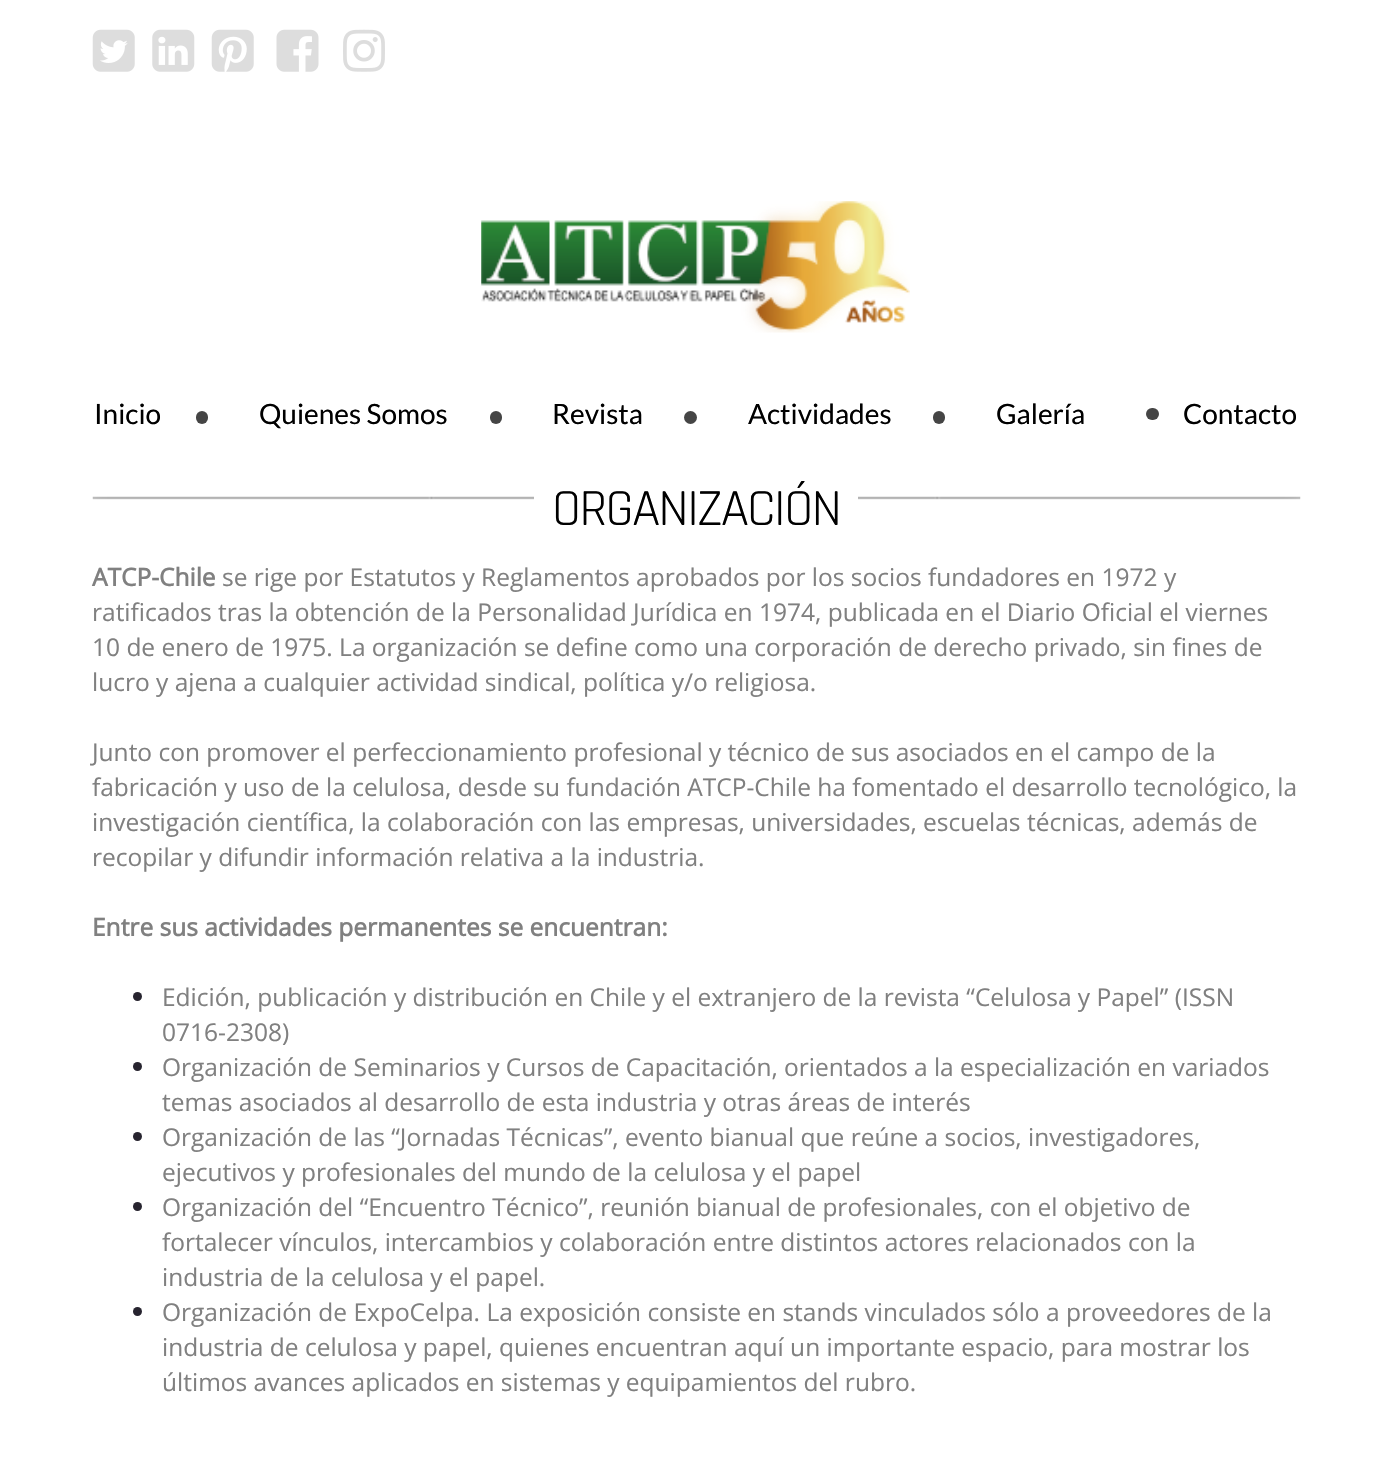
void draw(SkCanvas* canvas) {
	SkPaint paint;
	paint.setAntiAlias(true);
	auto spacedText = [&](const char* s, float x, float y, const SkFont& font, const SkPaint& ink, float letter, float word) {
		std::vector<SkGlyphID> glyphs(font.countText(s, strlen(s), SkTextEncoding::kUTF8));
		std::vector<float> xs(glyphs.size());
		font.textToGlyphs(s, strlen(s), SkTextEncoding::kUTF8, glyphs);
		font.getXPos(glyphs, xs, x);
		float extra = 0;
		for (size_t i = 0; i < glyphs.size(); i++) {
			xs[i] += extra;
			extra += letter + word * (glyphs[i] == font.unicharToGlyph(' '));
		}
		canvas->drawTextBlob(SkTextBlob::MakeFromPosHGlyphs(glyphs, xs, y, font), 0, 0, ink);
	};
	canvas->clear(0xffffffff);
	canvas->drawImageRect(SkImages::DeferredFromEncodedData(SkData::MakeFromFileName("img1.png")), SkRect::MakeXYWH(92, 29, 43, 43), SkSamplingOptions());
	canvas->drawImageRect(SkImages::DeferredFromEncodedData(SkData::MakeFromFileName("img2.png")), SkRect::MakeXYWH(152, 29, 43, 43), SkSamplingOptions());
	canvas->drawImageRect(SkImages::DeferredFromEncodedData(SkData::MakeFromFileName("img3.png")), SkRect::MakeXYWH(211, 29, 43, 43), SkSamplingOptions());
	canvas->drawImageRect(SkImages::DeferredFromEncodedData(SkData::MakeFromFileName("img4.png")), SkRect::MakeXYWH(276, 29, 43, 43), SkSamplingOptions());
	canvas->drawImageRect(SkImages::DeferredFromEncodedData(SkData::MakeFromFileName("img5.png")), SkRect::MakeXYWH(343, 29, 42, 43), SkSamplingOptions());
	canvas->drawImageRect(SkImages::DeferredFromEncodedData(SkData::MakeFromFileName("img6.png")), SkRect::MakeXYWH(481, 201, 429, 132), SkSamplingOptions());
	SkFont f1(fontMgr->matchFamilyStyle("Lato", SkFontStyle::Normal()), 28);
	f1.setSubpixel(true);
	paint.setColor(0xff000000);
	canvas->drawString("Inicio", 94, 424, f1, paint);
	paint.setColor(0xff454545);
	canvas->drawRoundRect(SkRect::MakeXYWH(196, 411, 12, 13), 6, 6, paint);
	paint.setColor(0xff000000);
	canvas->drawString("Quienes Somos", 259, 424, f1, paint);
	paint.setColor(0xff454545);
	canvas->drawRoundRect(SkRect::MakeXYWH(490, 411, 12, 13), 6, 6, paint);
	paint.setColor(0xff000000);
	canvas->drawString("Revista", 552, 424, f1, paint);
	paint.setColor(0xff454545);
	canvas->drawCircle(690.5, 417.5, 6.5, paint);
	paint.setColor(0xff000000);
	canvas->drawString("Actividades", 748, 424, f1, paint);
	paint.setColor(0xff454545);
	canvas->drawRoundRect(SkRect::MakeXYWH(933, 411, 12, 13), 6, 6, paint);
	paint.setColor(0xff000000);
	canvas->drawString("Galería", 996, 424, f1, paint);
	paint.setColor(0xff454545);
	canvas->drawRoundRect(SkRect::MakeXYWH(1146, 408, 13, 12), 6, 6, paint);
	paint.setColor(0xff000000);
	canvas->drawString("Contacto", 1183, 424, f1, paint);
	canvas->drawImageRect(SkImages::DeferredFromEncodedData(SkData::MakeFromFileName("img7.png")), SkRect::MakeXYWH(92, 496, 1209, 4), SkSamplingOptions());
	paint.setColor(0xffffffff);
	canvas->drawRect(SkRect::MakeXYWH(534, 496, 324, 4), paint);
	SkFont f2(fontMgr->matchFamilyStyle("Rajdhani", SkFontStyle::Normal()), 52.5);
	f2.setSubpixel(true);
	paint.setColor(0xff000000);
	spacedText("ORGANIZACIÓN", 552, 525, f2, paint, -1.75, 0);
	SkFont f3(fontMgr->matchFamilyStyle("Open Sans", SkFontStyle::Bold()), 24.5);
	f3.setSubpixel(true);
	paint.setColor(0xff808080);
	canvas->drawString("ATCP-Chile", 92, 586, f3, paint);
	SkFont f4(fontMgr->matchFamilyStyle("Open Sans", SkFontStyle::Normal()), 24.5);
	f4.setSubpixel(true);
	canvas->drawString("se rige por Estatutos y Reglamentos aprobados por los socios fundadores en 1972 y", 222, 586, f4, paint);
	canvas->drawString("ratificados tras la obtención de la Personalidad Jurídica en 1974, publicada en el Diario Oficial el viernes", 92, 621, f4, paint);
	canvas->drawString("10 de enero de 1975. La organización se define como una corporación de derecho privado, sin fines de", 92, 656, f4, paint);
	canvas->drawString("lucro y ajena a cualquier actividad sindical, política y/o religiosa.", 92, 691, f4, paint);
	canvas->drawString("Junto con promover el perfeccionamiento profesional y técnico de sus asociados en el campo de la", 92, 761, f4, paint);
	canvas->drawString("fabricación y uso de la celulosa, desde su fundación ATCP-Chile ha fomentado el desarrollo tecnológico, la", 92, 796, f4, paint);
	canvas->drawString("investigación científica, la colaboración con las empresas, universidades, escuelas técnicas, además de", 92, 831, f4, paint);
	canvas->drawString("recopilar y difundir información relativa a la industria.", 92, 866, f4, paint);
	canvas->drawString("Entre sus actividades permanentes se encuentran:", 92, 936, f3, paint);
	paint.setColor(0xff27242f);
	canvas->drawCircle(137.5, 996.5, 4.5, paint);
	paint.setColor(0xff808080);
	canvas->drawString("Edición, publicación y distribución en Chile y el extranjero de la revista “Celulosa y Papel” (ISSN", 162, 1006, f4, paint);
	canvas->drawString("0716-2308)", 162, 1041, f4, paint);
	paint.setColor(0xff27242f);
	canvas->drawCircle(137.5, 1066.5, 4.5, paint);
	paint.setColor(0xff808080);
	canvas->drawString("Organización de Seminarios y Cursos de Capacitación, orientados a la especialización en variados", 162, 1076, f4, paint);
	canvas->drawString("temas asociados al desarrollo de esta industria y otras áreas de interés", 162, 1111, f4, paint);
	paint.setColor(0xff27242f);
	canvas->drawCircle(137.5, 1136.5, 4.5, paint);
	paint.setColor(0xff808080);
	canvas->drawString("Organización de las “Jornadas Técnicas”, evento bianual que reúne a socios, investigadores,", 162, 1146, f4, paint);
	canvas->drawString("ejecutivos y profesionales del mundo de la celulosa y el papel", 162, 1181, f4, paint);
	paint.setColor(0xff27242f);
	canvas->drawCircle(137.5, 1206.5, 4.5, paint);
	paint.setColor(0xff808080);
	canvas->drawString("Organización del “Encuentro Técnico”, reunión bianual de profesionales, con el objetivo de", 162, 1216, f4, paint);
	canvas->drawString("fortalecer vínculos, intercambios y colaboración entre distintos actores relacionados con la", 162, 1251, f4, paint);
	canvas->drawString("industria de la celulosa y el papel.", 162, 1286, f4, paint);
	paint.setColor(0xff27242f);
	canvas->drawCircle(137.5, 1311.5, 4.5, paint);
	paint.setColor(0xff808080);
	canvas->drawString("Organización de ExpoCelpa. La exposición consiste en stands vinculados sólo a proveedores de la", 162, 1321, f4, paint);
	canvas->drawString("industria de celulosa y papel, quienes encuentran aquí un importante espacio, para mostrar los", 162, 1356, f4, paint);
	canvas->drawString("últimos avances aplicados en sistemas y equipamientos del rubro.", 162, 1391, f4, paint);
}
